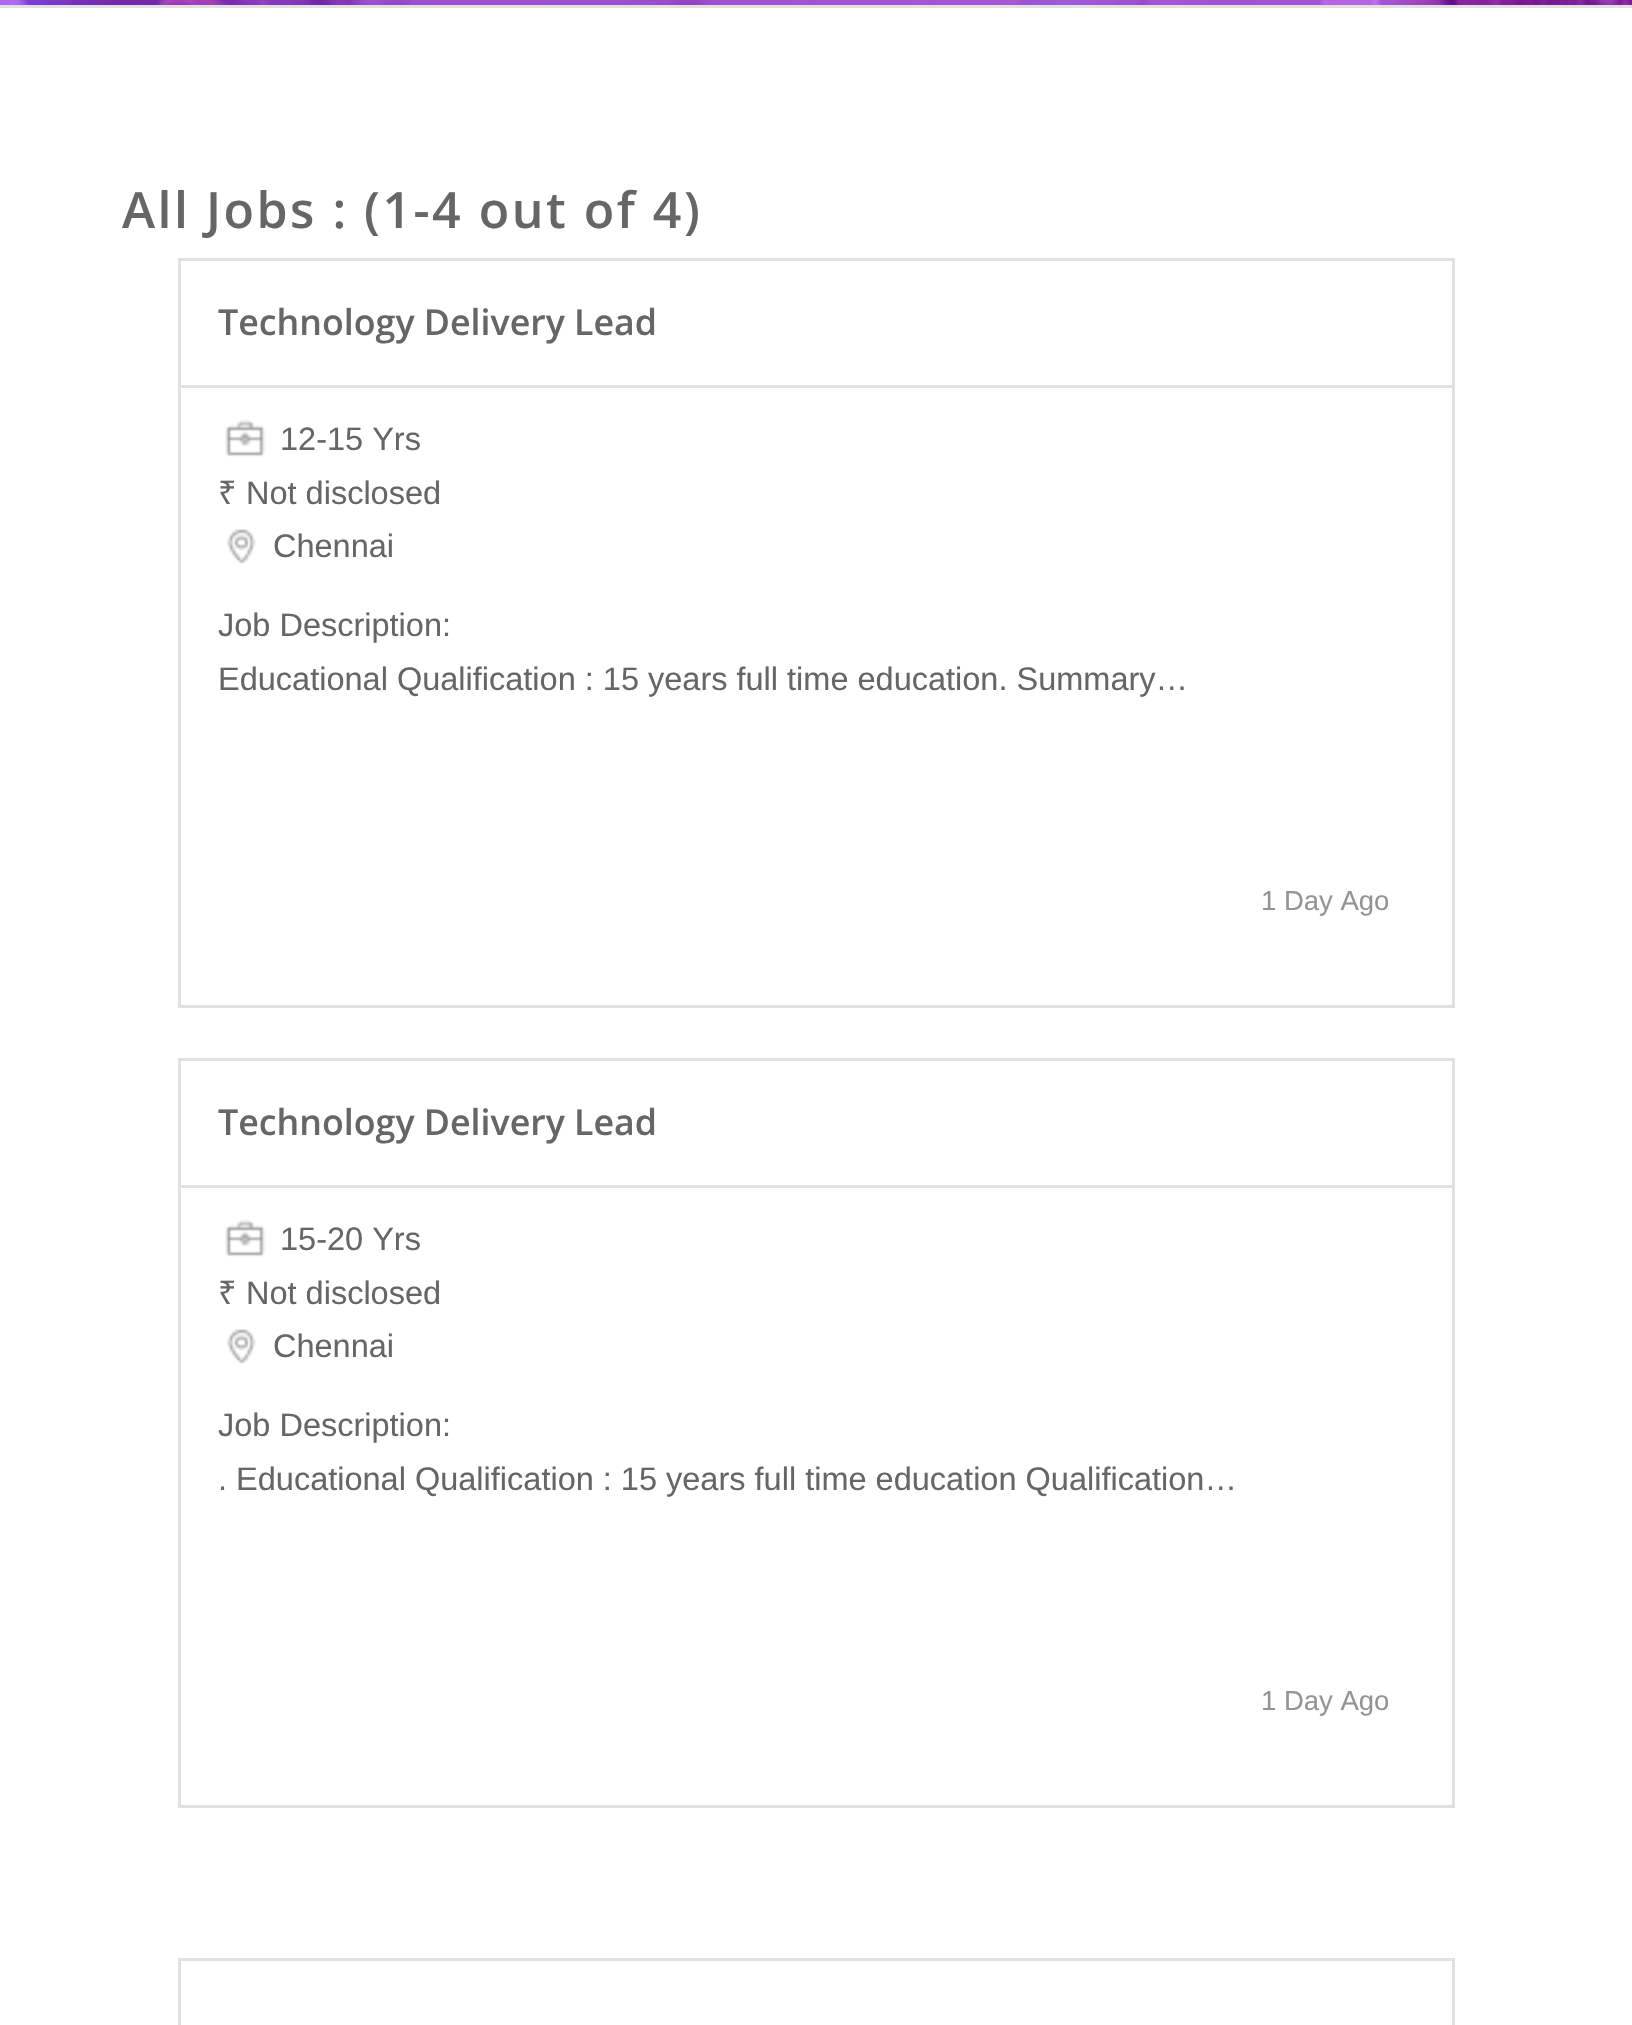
void draw(SkCanvas* canvas) {
	SkPaint paint;
	paint.setAntiAlias(true);
	auto spacedText = [&](const char* s, float x, float y, const SkFont& font, const SkPaint& ink, float letter, float word) {
		std::vector<SkGlyphID> glyphs(font.countText(s, strlen(s), SkTextEncoding::kUTF8));
		std::vector<float> xs(glyphs.size());
		font.textToGlyphs(s, strlen(s), SkTextEncoding::kUTF8, glyphs);
		font.getXPos(glyphs, xs, x);
		float extra = 0;
		for (size_t i = 0; i < glyphs.size(); i++) {
			xs[i] += extra;
			extra += letter + word * (glyphs[i] == font.unicharToGlyph(' '));
		}
		canvas->drawTextBlob(SkTextBlob::MakeFromPosHGlyphs(glyphs, xs, y, font), 0, 0, ink);
	};
	canvas->clear(0xffffffff);
	canvas->drawImageRect(SkImages::DeferredFromEncodedData(SkData::MakeFromFileName("img1.png")), SkRect::MakeXYWH(0, 0, 1632, 5), SkSamplingOptions());
	paint.setColor(0xffe1e1e1);
	canvas->drawRect(SkRect::MakeXYWH(0, 5, 1632, 3), paint);
	SkFont f1(fontMgr->matchFamilyStyle("Open Sans", SkFontStyle(600, SkFontStyle::kNormal_Width, SkFontStyle::kUpright_Slant)), 50);
	f1.setSubpixel(true);
	paint.setColor(0xff666666);
	spacedText("All Jobs : (1-4 out of 4)", 122, 228, f1, paint, 2.5, 0);
	paint.setStroke(true);
	paint.setStrokeWidth(3);
	paint.setColor(0xffe1e1e1);
	canvas->drawRect(SkRect::MakeXYWH(179.5, 259.5, 1274, 747), paint);
	paint.setStroke(false);
	canvas->drawRect(SkRect::MakeXYWH(180, 385, 1273, 3), paint);
	SkFont f2(fontMgr->matchFamilyStyle("Open Sans", SkFontStyle(600, SkFontStyle::kNormal_Width, SkFontStyle::kUpright_Slant)), 35.75);
	f2.setSubpixel(true);
	paint.setColor(0xff666666);
	canvas->drawString("Technology Delivery Lead", 218, 335, f2, paint);
	canvas->drawImageRect(SkImages::DeferredFromEncodedData(SkData::MakeFromFileName("img2.png")), SkRect::MakeXYWH(225, 419, 41, 38), SkSamplingOptions());
	SkFont f3(fontMgr->matchFamilyStyle("Liberation Sans", SkFontStyle::Normal()), 32.5);
	f3.setSubpixel(true);
	canvas->drawString("12-15 Yrs", 280, 450, f3, paint);
	SkFont f4(fontMgr->matchFamilyStyle("Noto Sans", SkFontStyle::Normal()), 32.5);
	f4.setSubpixel(true);
	canvas->drawString("₹", 218, 504, f4, paint);
	canvas->drawString("Not disclosed", 246, 504, f3, paint);
	canvas->drawImageRect(SkImages::DeferredFromEncodedData(SkData::MakeFromFileName("img3.png")), SkRect::MakeXYWH(226, 529, 30, 35), SkSamplingOptions());
	canvas->drawString("Chennai", 273, 557, f3, paint);
	canvas->drawString("Job Description:", 218, 636, f3, paint);
	canvas->drawString("Educational Qualification : 15 years full time education. Summary…", 218, 690, f3, paint);
	SkFont f5(fontMgr->matchFamilyStyle("Liberation Sans", SkFontStyle::Normal()), 27.5);
	f5.setSubpixel(true);
	paint.setColor(0xff949494);
	canvas->drawString("1 Day Ago", 1261, 910, f5, paint);
	paint.setStroke(true);
	paint.setColor(0xffe1e1e1);
	canvas->drawRect(SkRect::MakeXYWH(179.5, 1059.5, 1274, 747), paint);
	paint.setStroke(false);
	canvas->drawRect(SkRect::MakeXYWH(180, 1185, 1273, 3), paint);
	paint.setColor(0xff666666);
	canvas->drawString("Technology Delivery Lead", 218, 1135, f2, paint);
	canvas->drawImageRect(SkImages::DeferredFromEncodedData(SkData::MakeFromFileName("img2.png")), SkRect::MakeXYWH(225, 1219, 41, 38), SkSamplingOptions());
	canvas->drawString("15-20 Yrs", 280, 1250, f3, paint);
	canvas->drawString("₹", 218, 1304, f4, paint);
	canvas->drawString("Not disclosed", 246, 1304, f3, paint);
	canvas->drawImageRect(SkImages::DeferredFromEncodedData(SkData::MakeFromFileName("img3.png")), SkRect::MakeXYWH(226, 1329, 30, 35), SkSamplingOptions());
	canvas->drawString("Chennai", 273, 1357, f3, paint);
	canvas->drawString("Job Description:", 218, 1436, f3, paint);
	canvas->drawString(". Educational Qualification : 15 years full time education Qualification…", 218, 1490, f3, paint);
	paint.setColor(0xff949494);
	canvas->drawString("1 Day Ago", 1261, 1710, f5, paint);
	paint.setStroke(true);
	paint.setColor(0xffe1e1e1);
	canvas->drawRect(SkRect::MakeXYWH(179.5, 1959.5, 1274, 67), paint);
}
